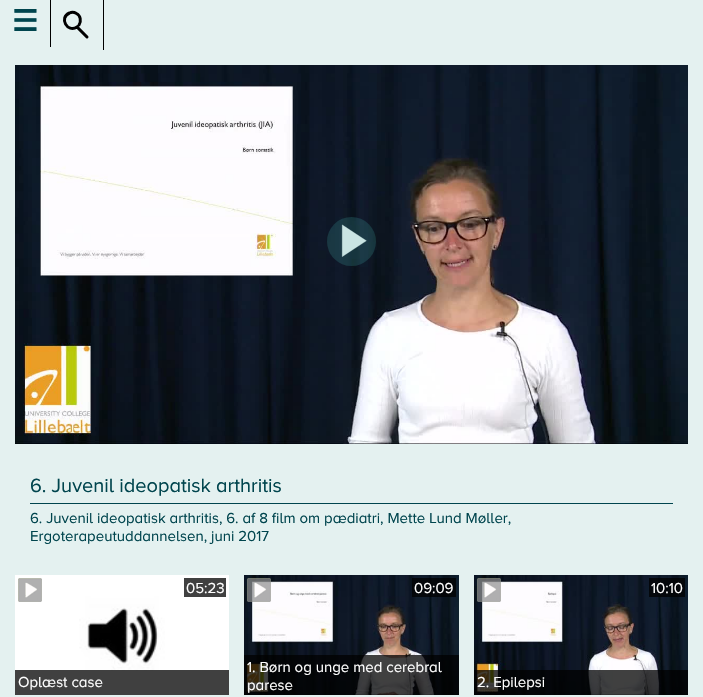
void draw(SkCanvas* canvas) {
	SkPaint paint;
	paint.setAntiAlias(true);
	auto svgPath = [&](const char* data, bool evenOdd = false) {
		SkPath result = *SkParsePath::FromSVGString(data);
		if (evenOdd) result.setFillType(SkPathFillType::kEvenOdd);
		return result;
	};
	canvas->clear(0xffe4f1f0);
	paint.setColor(0xff000000);
	canvas->drawRect(SkRect::MakeXYWH(50, 0, 1, 47), paint);
	SkFont f1(fontMgr->matchFamilyStyle("DejaVu Sans", SkFontStyle::Bold()), 29);
	f1.setSubpixel(true);
	paint.setColor(0xff00454e);
	canvas->drawString("☰", 12, 31, f1, paint);
	paint.setColor(0xff000000);
	canvas->drawRect(SkRect::MakeXYWH(103, 0, 1, 50), paint);
	paint.setStroke(true);
	paint.setStrokeWidth(3);
	paint.setStrokeCap(SkPaint::kRound_Cap);
	canvas->drawPath(svgPath("M79 25C81.5 21 80.5 15.5 76.5 13.5C74 12 71.5 12 69.5 13C58.5 17.5 67.5 33.5 77 27L87 37"), paint);
	canvas->drawImageRect(SkImages::DeferredFromEncodedData(SkData::MakeFromFileName("img1.png")), SkRect::MakeXYWH(15, 65, 673, 379), SkSamplingOptions());
	paint.setStroke(false);
	paint.setColor(0xff00454e);
	canvas->drawRect(SkRect::MakeXYWH(30, 503, 643, 1), paint);
	SkFont f2(fontMgr->matchFamilyStyle("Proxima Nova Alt", SkFontStyle::Normal()), 20);
	f2.setSubpixel(true);
	canvas->drawString("6. Juvenil ideopatisk arthritis", 30, 492, f2, paint);
	SkFont f3(fontMgr->matchFamilyStyle("Proxima Nova Alt", SkFontStyle::Normal()), 15);
	f3.setSubpixel(true);
	canvas->drawString("6. Juvenil ideopatisk arthritis, 6. af 8 film om pædiatri, Mette Lund Møller,", 30, 523, f3, paint);
	canvas->drawString("Ergoterapeutuddannelsen, juni 2017", 30, 541, f3, paint);
	canvas->drawImageRect(SkImages::DeferredFromEncodedData(SkData::MakeFromFileName("img2.png")), SkRect::MakeXYWH(15, 575, 214, 120), SkSamplingOptions());
	canvas->drawImageRect(SkImages::DeferredFromEncodedData(SkData::MakeFromFileName("img3.png")), SkRect::MakeXYWH(18, 578, 24, 24), SkSamplingOptions());
	paint.setColor(0xff404040);
	canvas->drawRect(SkRect::MakeXYWH(184, 578, 42, 19), paint);
	paint.setColor(0xffffffff);
	canvas->drawString("05:23", 186, 593, f3, paint);
	paint.setColor(0xbf000000);
	canvas->drawRect(SkRect::MakeXYWH(15, 670, 214, 25), paint);
	paint.setColor(0xffffffff);
	canvas->drawString("Oplæst case", 18, 687, f3, paint);
	canvas->drawImageRect(SkImages::DeferredFromEncodedData(SkData::MakeFromFileName("img4.png")), SkRect::MakeXYWH(244, 575, 215, 120), SkSamplingOptions());
	canvas->drawImageRect(SkImages::DeferredFromEncodedData(SkData::MakeFromFileName("img5.png")), SkRect::MakeXYWH(247, 578, 24, 24), SkSamplingOptions());
	paint.setColor(0xbf000000);
	canvas->drawRect(SkRect::MakeXYWH(412, 578, 44, 19), paint);
	paint.setColor(0xffffffff);
	canvas->drawString("09:09", 414, 593, f3, paint);
	paint.setColor(0xbf000000);
	canvas->drawRect(SkRect::MakeXYWH(244, 655, 215, 40), paint);
	paint.setColor(0xffffffff);
	canvas->drawString("1. Børn og unge med cerebral", 247, 672, f3, paint);
	canvas->drawString("parese", 247, 690, f3, paint);
	canvas->drawImageRect(SkImages::DeferredFromEncodedData(SkData::MakeFromFileName("img6.png")), SkRect::MakeXYWH(474, 575, 214, 120), SkSamplingOptions());
	canvas->drawImageRect(SkImages::DeferredFromEncodedData(SkData::MakeFromFileName("img7.png")), SkRect::MakeXYWH(477, 578, 24, 24), SkSamplingOptions());
	paint.setColor(0xbf000000);
	canvas->drawRect(SkRect::MakeXYWH(649, 578, 36, 19), paint);
	paint.setColor(0xffffffff);
	canvas->drawString("10:10", 651, 593, f3, paint);
	paint.setColor(0xbf000000);
	canvas->drawRect(SkRect::MakeXYWH(474, 670, 214, 25), paint);
	paint.setColor(0xffffffff);
	canvas->drawString("2. Epilepsi", 477, 687, f3, paint);
}
